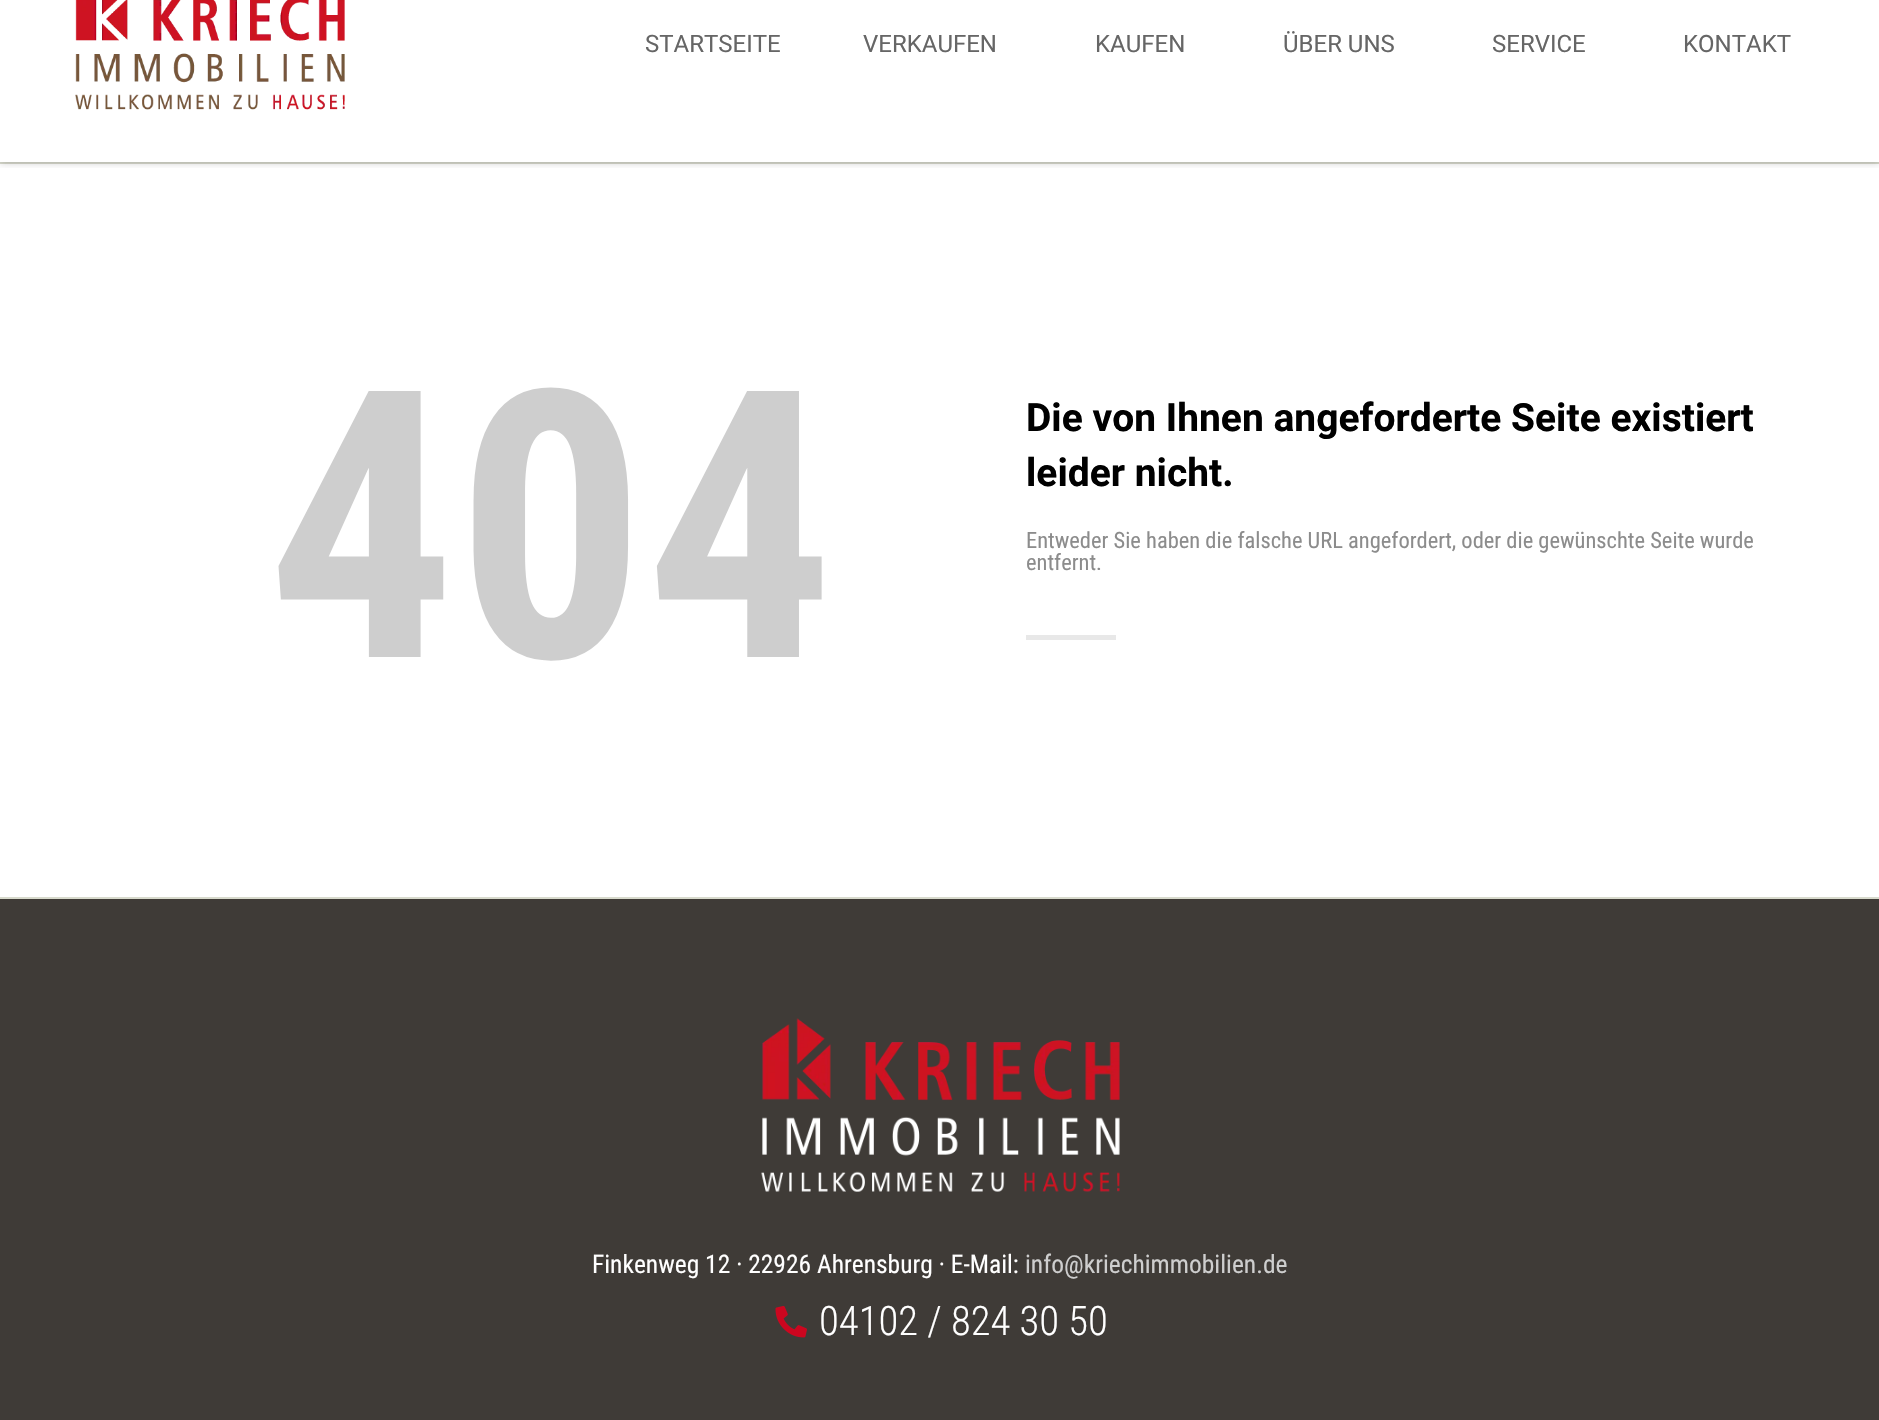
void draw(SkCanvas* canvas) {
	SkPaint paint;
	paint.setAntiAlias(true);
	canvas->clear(0xffffffff);
	paint.setColor(0xffd8dacd);
	canvas->drawRect(SkRect::MakeXYWH(0, 162, 1879, 2), paint);
	canvas->save();
	canvas->clipRect(SkRect::MakeXYWH(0, 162, 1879, 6));
	paint.setColor(0x40000000);
	paint.setMaskFilter(SkMaskFilter::MakeBlur(kNormal_SkBlurStyle, 4));
	canvas->drawRect(SkRect::MakeXYWH(0, -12, 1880, 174), paint);
	paint.setMaskFilter(nullptr);
	canvas->restore();
	canvas->drawImageRect(SkImages::DeferredFromEncodedData(SkData::MakeFromFileName("img1.png")), SkRect::MakeXYWH(75, 0, 270, 110), SkSamplingOptions());
	SkFont f1(fontMgr->matchFamilyStyle("Roboto", SkFontStyle::Normal()), 24);
	f1.setSubpixel(true);
	paint.setColor(0xff666666);
	canvas->drawString("STARTSEITE", 645, 52, f1, paint);
	canvas->drawString("VERKAUFEN", 863, 52, f1, paint);
	canvas->drawString("KAUFEN", 1095, 52, f1, paint);
	canvas->drawString("ÜBER UNS", 1283, 52, f1, paint);
	canvas->drawString("SERVICE", 1492, 52, f1, paint);
	canvas->drawString("KONTAKT", 1683, 52, f1, paint);
	paint.setColor(0xff3f3b37);
	canvas->drawRect(SkRect::MakeXYWH(0, 899, 1879, 521), paint);
	canvas->drawImageRect(SkImages::DeferredFromEncodedData(SkData::MakeFromFileName("img2.png")), SkRect::MakeXYWH(761, 1018, 359, 174), SkSamplingOptions());
	SkFont f2(fontMgr->matchFamilyStyle("Roboto Condensed", SkFontStyle::Normal()), 25.5);
	f2.setSubpixel(true);
	paint.setColor(0xffffffff);
	canvas->drawString("Finkenweg 12 · 22926 Ahrensburg · E-Mail:", 592, 1273, f2, paint);
	paint.setColor(0xffcecece);
	canvas->drawString("info@kriechimmobilien.de", 1025, 1273, f2, paint);
	canvas->drawImageRect(SkImages::DeferredFromEncodedData(SkData::MakeFromFileName("img3.png")), SkRect::MakeXYWH(775, 1306, 32, 32), SkSamplingOptions());
	SkFont f3(fontMgr->matchFamilyStyle("Roboto Condensed", SkFontStyle(300, SkFontStyle::kNormal_Width, SkFontStyle::kUpright_Slant)), 40.75);
	f3.setSubpixel(true);
	paint.setColor(0xffffffff);
	canvas->drawString("04102 / 824 30 50", 819, 1335, f3, paint);
	paint.setColor(0xffd8dacd);
	canvas->drawRect(SkRect::MakeXYWH(0, 897, 1879, 2), paint);
	SkFont f4(fontMgr->matchFamilyStyle("Roboto Condensed", SkFontStyle::Bold()), 374);
	f4.setSubpixel(true);
	paint.setColor(0xffcecece);
	canvas->drawString("404", 267, 657, f4, paint);
	SkFont f5(fontMgr->matchFamilyStyle("Roboto", SkFontStyle::Bold()), 39);
	f5.setSubpixel(true);
	paint.setColor(0xff000000);
	canvas->drawString("Die von Ihnen angeforderte Seite existiert", 1026, 431, f5, paint);
	canvas->drawString("leider nicht.", 1026, 486, f5, paint);
	SkFont f6(fontMgr->matchFamilyStyle("Roboto Condensed", SkFontStyle::Normal()), 22.5);
	f6.setSubpixel(true);
	paint.setColor(0xff8c8c8c);
	canvas->drawString("Entweder Sie haben die falsche URL angefordert, oder die gewünschte Seite wurde", 1026, 548, f6, paint);
	canvas->drawString("entfernt.", 1026, 570, f6, paint);
	paint.setColor(0xffe8e8e8);
	canvas->drawRect(SkRect::MakeXYWH(1026, 635, 90, 5), paint);
}
